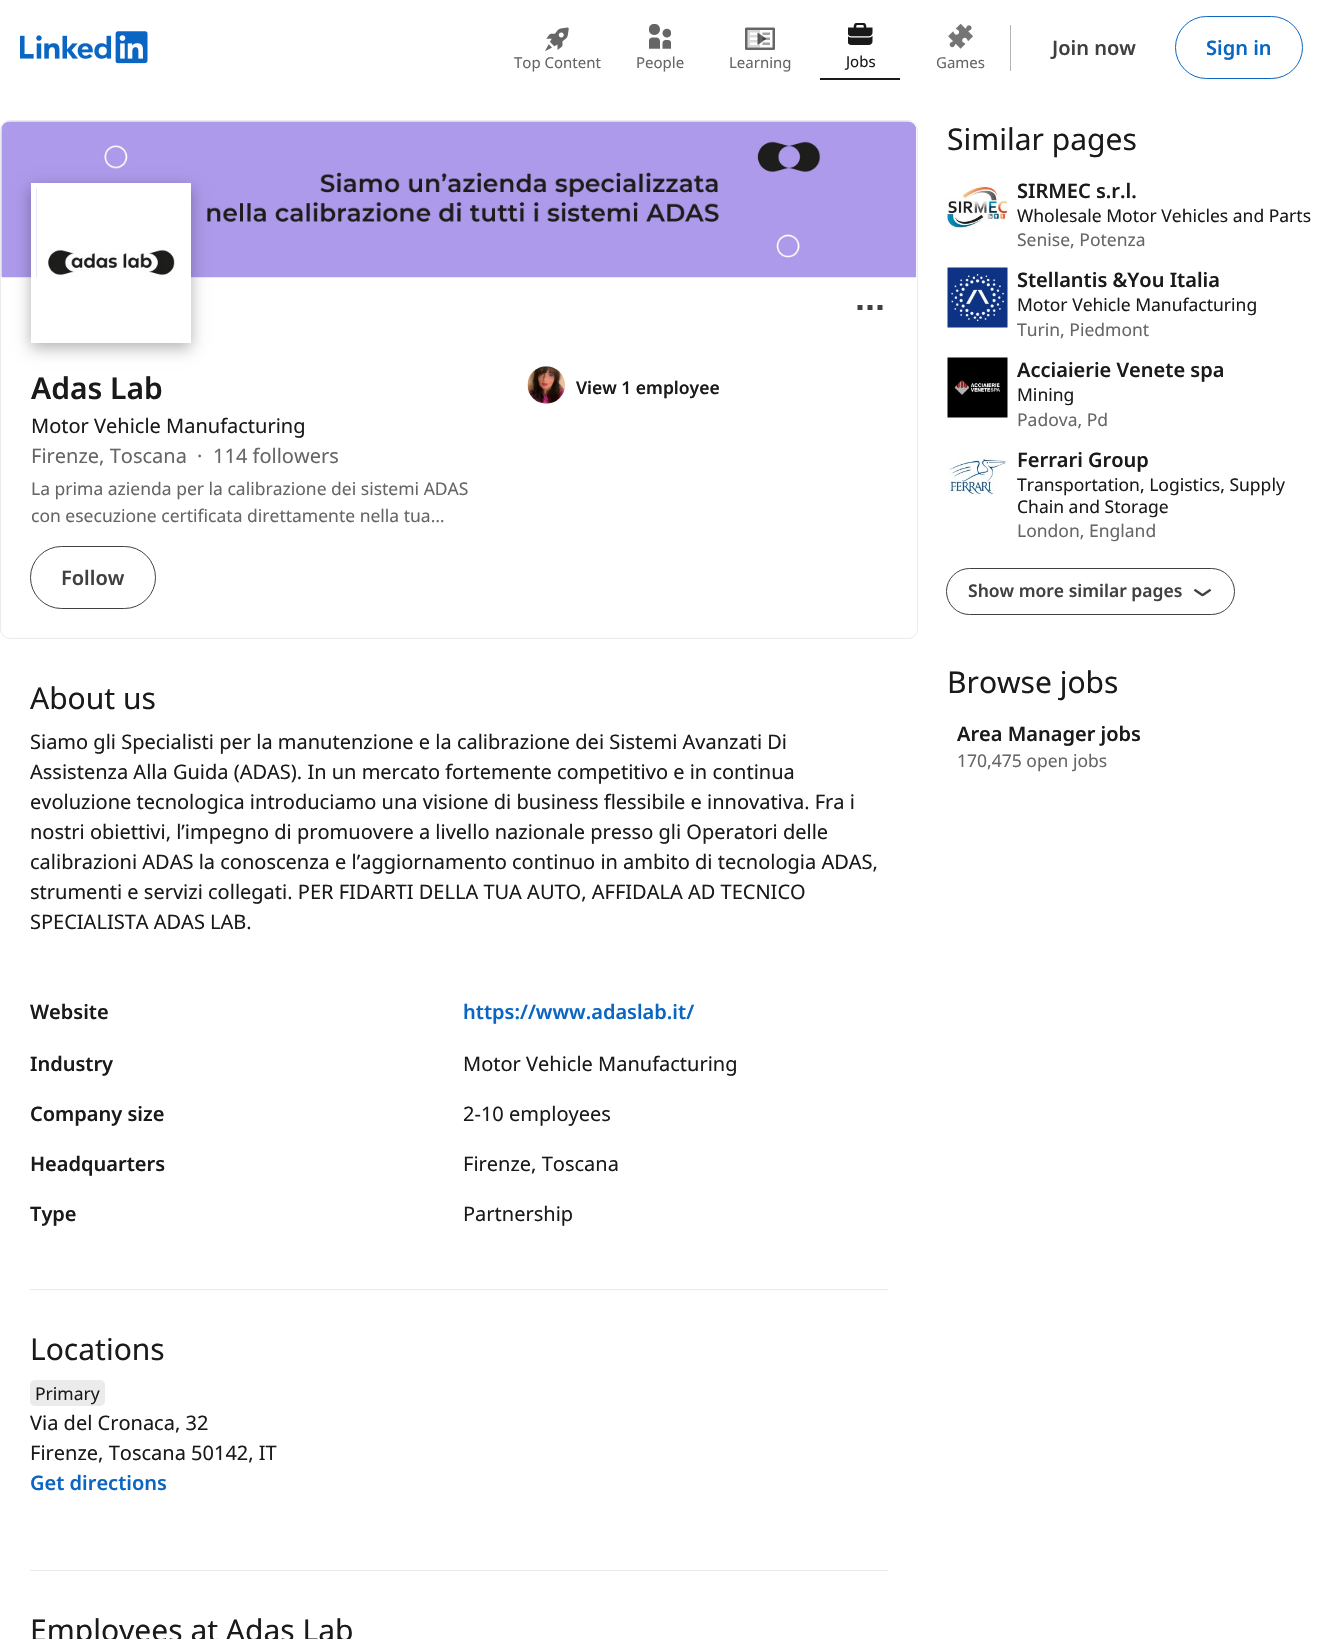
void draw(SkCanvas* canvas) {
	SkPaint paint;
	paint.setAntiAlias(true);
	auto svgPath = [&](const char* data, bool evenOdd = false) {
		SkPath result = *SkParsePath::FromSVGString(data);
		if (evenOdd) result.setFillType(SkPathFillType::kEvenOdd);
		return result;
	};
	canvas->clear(0xffffffff);
	canvas->drawImageRect(SkImages::DeferredFromEncodedData(SkData::MakeFromFileName("img1.png")), SkRect::MakeXYWH(20, 31, 128, 33), SkSamplingOptions());
	SkFont f1(fontMgr->matchFamilyStyle("Noto Sans", SkFontStyle(600, SkFontStyle::kNormal_Width, SkFontStyle::kUpright_Slant)), 20);
	f1.setSubpixel(true);
	paint.setColor(0xff404040);
	canvas->drawString("Join now", 1052, 55, f1, paint);
	paint.setStroke(true);
	paint.setStrokeWidth(1);
	paint.setColor(0xff0a66c2);
	canvas->drawRoundRect(SkRect::MakeXYWH(1175.5, 16.5, 127, 62), 31, 31, paint);
	paint.setStroke(false);
	canvas->drawString("Sign in", 1206, 55, f1, paint);
	canvas->drawImageRect(SkImages::DeferredFromEncodedData(SkData::MakeFromFileName("img2.png")), SkRect::MakeXYWH(545, 27, 24, 25), SkSamplingOptions());
	SkFont f2(fontMgr->matchFamilyStyle("Noto Sans", SkFontStyle::Normal()), 15);
	f2.setSubpixel(true);
	paint.setColor(0xff666666);
	canvas->drawString("Top Content", 514, 68, f2, paint);
	canvas->drawImageRect(SkImages::DeferredFromEncodedData(SkData::MakeFromFileName("img3.png")), SkRect::MakeXYWH(649, 24, 22, 25), SkSamplingOptions());
	canvas->drawString("People", 636, 68, f2, paint);
	canvas->drawImageRect(SkImages::DeferredFromEncodedData(SkData::MakeFromFileName("img4.png")), SkRect::MakeXYWH(745, 27, 30, 23), SkSamplingOptions());
	canvas->drawString("Learning", 729, 68, f2, paint);
	paint.setColor(0xff1a1a1a);
	canvas->drawRect(SkRect::MakeXYWH(820, 78, 80, 2), paint);
	canvas->drawImageRect(SkImages::DeferredFromEncodedData(SkData::MakeFromFileName("img5.png")), SkRect::MakeXYWH(848, 23, 25, 22), SkSamplingOptions());
	canvas->drawString("Jobs", 846, 67, f2, paint);
	canvas->drawImageRect(SkImages::DeferredFromEncodedData(SkData::MakeFromFileName("img6.png")), SkRect::MakeXYWH(948, 24, 25, 25), SkSamplingOptions());
	paint.setColor(0xff666666);
	canvas->drawString("Games", 936, 68, f2, paint);
	paint.setColor(0xffb3b3b3);
	canvas->drawRect(SkRect::MakeXYWH(1010, 25, 1, 46), paint);
	paint.setStroke(true);
	paint.setColor(0xffebebeb);
	canvas->drawRoundRect(SkRect::MakeXYWH(0.5, 120.5, 917, 518), 9.5, 9.5, paint);
	canvas->drawImageRect(SkImages::DeferredFromEncodedData(SkData::MakeFromFileName("img7.png")), SkRect::MakeXYWH(1, 121, 916, 157), SkSamplingOptions());
	canvas->save();
	canvas->clipPath(svgPath("M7 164H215V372H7ZM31 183H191V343H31Z", true), true);
	paint.setStroke(false);
	paint.setColor(0x4d000000);
	paint.setMaskFilter(SkMaskFilter::MakeBlur(kNormal_SkBlurStyle, 7.5));
	canvas->drawRect(SkRect::MakeXYWH(31, 188, 160, 160), paint);
	paint.setMaskFilter(nullptr);
	canvas->restore();
	paint.setStroke(true);
	paint.setStrokeWidth(5);
	paint.setColor(0xffffffff);
	canvas->drawRect(SkRect::MakeXYWH(33.5, 185.5, 155, 155), paint);
	canvas->drawImageRect(SkImages::DeferredFromEncodedData(SkData::MakeFromFileName("img8.png")), SkRect::MakeXYWH(36, 188, 150, 90), SkSamplingOptions());
	canvas->drawImageRect(SkImages::DeferredFromEncodedData(SkData::MakeFromFileName("img9.png")), SkRect::MakeXYWH(857, 305, 26, 5), SkSamplingOptions());
	SkFont f3(fontMgr->matchFamilyStyle("Noto Sans", SkFontStyle(600, SkFontStyle::kNormal_Width, SkFontStyle::kUpright_Slant)), 30);
	f3.setSubpixel(true);
	paint.setStroke(false);
	paint.setColor(0xff1a1a1a);
	canvas->drawString("Adas Lab", 31, 399, f3, paint);
	SkFont f4(fontMgr->matchFamilyStyle("Noto Sans", SkFontStyle::Normal()), 20);
	f4.setSubpixel(true);
	canvas->drawString("Motor Vehicle Manufacturing", 31, 433, f4, paint);
	paint.setColor(0xff666666);
	canvas->drawString("Firenze, Toscana", 31, 463, f4, paint);
	canvas->drawString("·", 197, 463, f4, paint);
	canvas->drawString("114 followers", 213, 463, f4, paint);
	SkFont f5(fontMgr->matchFamilyStyle("Noto Sans", SkFontStyle::Normal()), 17.5);
	f5.setSubpixel(true);
	canvas->drawString("La prima azienda per la calibrazione dei sistemi ADAS", 31, 495, f5, paint);
	canvas->drawString("con esecuzione certificata direttamente nella tua…", 31, 522, f5, paint);
	paint.setStroke(true);
	paint.setStrokeWidth(1);
	paint.setColor(0xff404040);
	canvas->drawRoundRect(SkRect::MakeXYWH(30.5, 546.5, 125, 62), 31, 31, paint);
	paint.setStroke(false);
	canvas->drawString("Follow", 61, 585, f1, paint);
	canvas->drawImageRect(SkImages::DeferredFromEncodedData(SkData::MakeFromFileName("img10.png")), SkRect::MakeXYWH(527, 366, 38, 38), SkSamplingOptions());
	SkFont f6(fontMgr->matchFamilyStyle("Noto Sans", SkFontStyle(600, SkFontStyle::kNormal_Width, SkFontStyle::kUpright_Slant)), 17.5);
	f6.setSubpixel(true);
	paint.setColor(0xff1a1a1a);
	canvas->drawString("View 1 employee", 576, 394, f6, paint);
	paint.setColor(0xffebebeb);
	canvas->drawRect(SkRect::MakeXYWH(30, 1289, 858, 1), paint);
	SkFont f7(fontMgr->matchFamilyStyle("Noto Sans", SkFontStyle::Normal()), 30);
	f7.setSubpixel(true);
	paint.setColor(0xff1a1a1a);
	canvas->drawString("About us", 30, 709, f7, paint);
	canvas->drawString("Siamo gli Specialisti per la manutenzione e la calibrazione dei Sistemi Avanzati Di", 30, 749, f4, paint);
	canvas->drawString("Assistenza Alla Guida (ADAS). In un mercato fortemente competitivo e in continua", 30, 779, f4, paint);
	canvas->drawString("evoluzione tecnologica introduciamo una visione di business flessibile e innovativa. Fra i", 30, 809, f4, paint);
	canvas->drawString("nostri obiettivi, l’impegno di promuovere a livello nazionale presso gli Operatori delle", 30, 839, f4, paint);
	canvas->drawString("calibrazioni ADAS la conoscenza e l’aggiornamento continuo in ambito di tecnologia ADAS,", 30, 869, f4, paint);
	canvas->drawString("strumenti e servizi collegati. PER FIDARTI DELLA TUA AUTO, AFFIDALA AD TECNICO", 30, 899, f4, paint);
	canvas->drawString("SPECIALISTA ADAS LAB.", 30, 929, f4, paint);
	canvas->drawString("Website", 30, 1019, f1, paint);
	paint.setColor(0xff0a66c2);
	canvas->drawString("https://www.adaslab.it/", 463, 1019, f1, paint);
	paint.setColor(0xff1a1a1a);
	canvas->drawString("Industry", 30, 1071, f1, paint);
	canvas->drawString("Motor Vehicle Manufacturing", 463, 1071, f4, paint);
	canvas->drawString("Company size", 30, 1121, f1, paint);
	canvas->drawString("2-10 employees", 463, 1121, f4, paint);
	canvas->drawString("Headquarters", 30, 1171, f1, paint);
	canvas->drawString("Firenze, Toscana", 463, 1171, f4, paint);
	canvas->drawString("Type", 30, 1221, f1, paint);
	canvas->drawString("Partnership", 463, 1221, f4, paint);
	paint.setColor(0xffebebeb);
	canvas->drawRect(SkRect::MakeXYWH(30, 1570, 858, 1), paint);
	paint.setColor(0xff1a1a1a);
	canvas->drawString("Locations", 30, 1360, f7, paint);
	paint.setColor(0xffebebeb);
	canvas->drawRoundRect(SkRect::MakeXYWH(30, 1380, 75, 26), 5, 5, paint);
	paint.setColor(0xff1a1a1a);
	canvas->drawString("Primary", 35, 1400, f5, paint);
	canvas->drawString("Via del Cronaca, 32", 30, 1430, f4, paint);
	canvas->drawString("Firenze, Toscana 50142, IT", 30, 1460, f4, paint);
	paint.setColor(0xff0a66c2);
	canvas->drawString("Get directions", 30, 1490, f1, paint);
	paint.setColor(0xff1a1a1a);
	canvas->drawString("Employees at Adas Lab", 30, 1641, f7, paint);
	canvas->drawString("Similar pages", 947, 150, f7, paint);
	canvas->drawImageRect(SkImages::DeferredFromEncodedData(SkData::MakeFromFileName("img11.png")), SkRect::MakeXYWH(947, 186, 61, 49), SkSamplingOptions());
	canvas->drawString("SIRMEC s.r.l.", 1017, 198, f1, paint);
	canvas->drawString("Wholesale Motor Vehicles and Parts", 1017, 222, f5, paint);
	paint.setColor(0xff666666);
	canvas->drawString("Senise, Potenza", 1017, 246, f5, paint);
	canvas->drawImageRect(SkImages::DeferredFromEncodedData(SkData::MakeFromFileName("img12.png")), SkRect::MakeXYWH(947, 267, 61, 61), SkSamplingOptions());
	paint.setColor(0xff1a1a1a);
	canvas->drawString("Stellantis &You Italia", 1017, 287, f1, paint);
	canvas->drawString("Motor Vehicle Manufacturing", 1017, 311, f5, paint);
	paint.setColor(0xff666666);
	canvas->drawString("Turin, Piedmont", 1017, 336, f5, paint);
	canvas->drawImageRect(SkImages::DeferredFromEncodedData(SkData::MakeFromFileName("img13.png")), SkRect::MakeXYWH(947, 357, 61, 61), SkSamplingOptions());
	paint.setColor(0xff1a1a1a);
	canvas->drawString("Acciaierie Venete spa", 1017, 377, f1, paint);
	canvas->drawString("Mining", 1017, 401, f5, paint);
	paint.setColor(0xff666666);
	canvas->drawString("Padova, Pd", 1017, 426, f5, paint);
	canvas->drawImageRect(SkImages::DeferredFromEncodedData(SkData::MakeFromFileName("img14.png")), SkRect::MakeXYWH(947, 456, 59, 39), SkSamplingOptions());
	paint.setColor(0xff1a1a1a);
	canvas->drawString("Ferrari Group", 1017, 467, f1, paint);
	canvas->drawString("Transportation, Logistics, Supply", 1017, 491, f5, paint);
	canvas->drawString("Chain and Storage", 1017, 513, f5, paint);
	paint.setColor(0xff666666);
	canvas->drawString("London, England", 1017, 537, f5, paint);
	paint.setStroke(true);
	paint.setColor(0xff404040);
	canvas->drawRoundRect(SkRect::MakeXYWH(946.5, 568.5, 288, 46), 23, 23, paint);
	paint.setStroke(false);
	canvas->drawString("Show more similar pages", 968, 597, f6, paint);
	canvas->drawImageRect(SkImages::DeferredFromEncodedData(SkData::MakeFromFileName("img15.png")), SkRect::MakeXYWH(1193, 588, 19, 9), SkSamplingOptions());
	paint.setColor(0xff1a1a1a);
	canvas->drawString("Browse jobs", 947, 693, f7, paint);
	canvas->drawString("Area Manager jobs", 957, 741, f1, paint);
	paint.setColor(0xff666666);
	canvas->drawString("170,475 open jobs", 957, 767, f5, paint);
}
